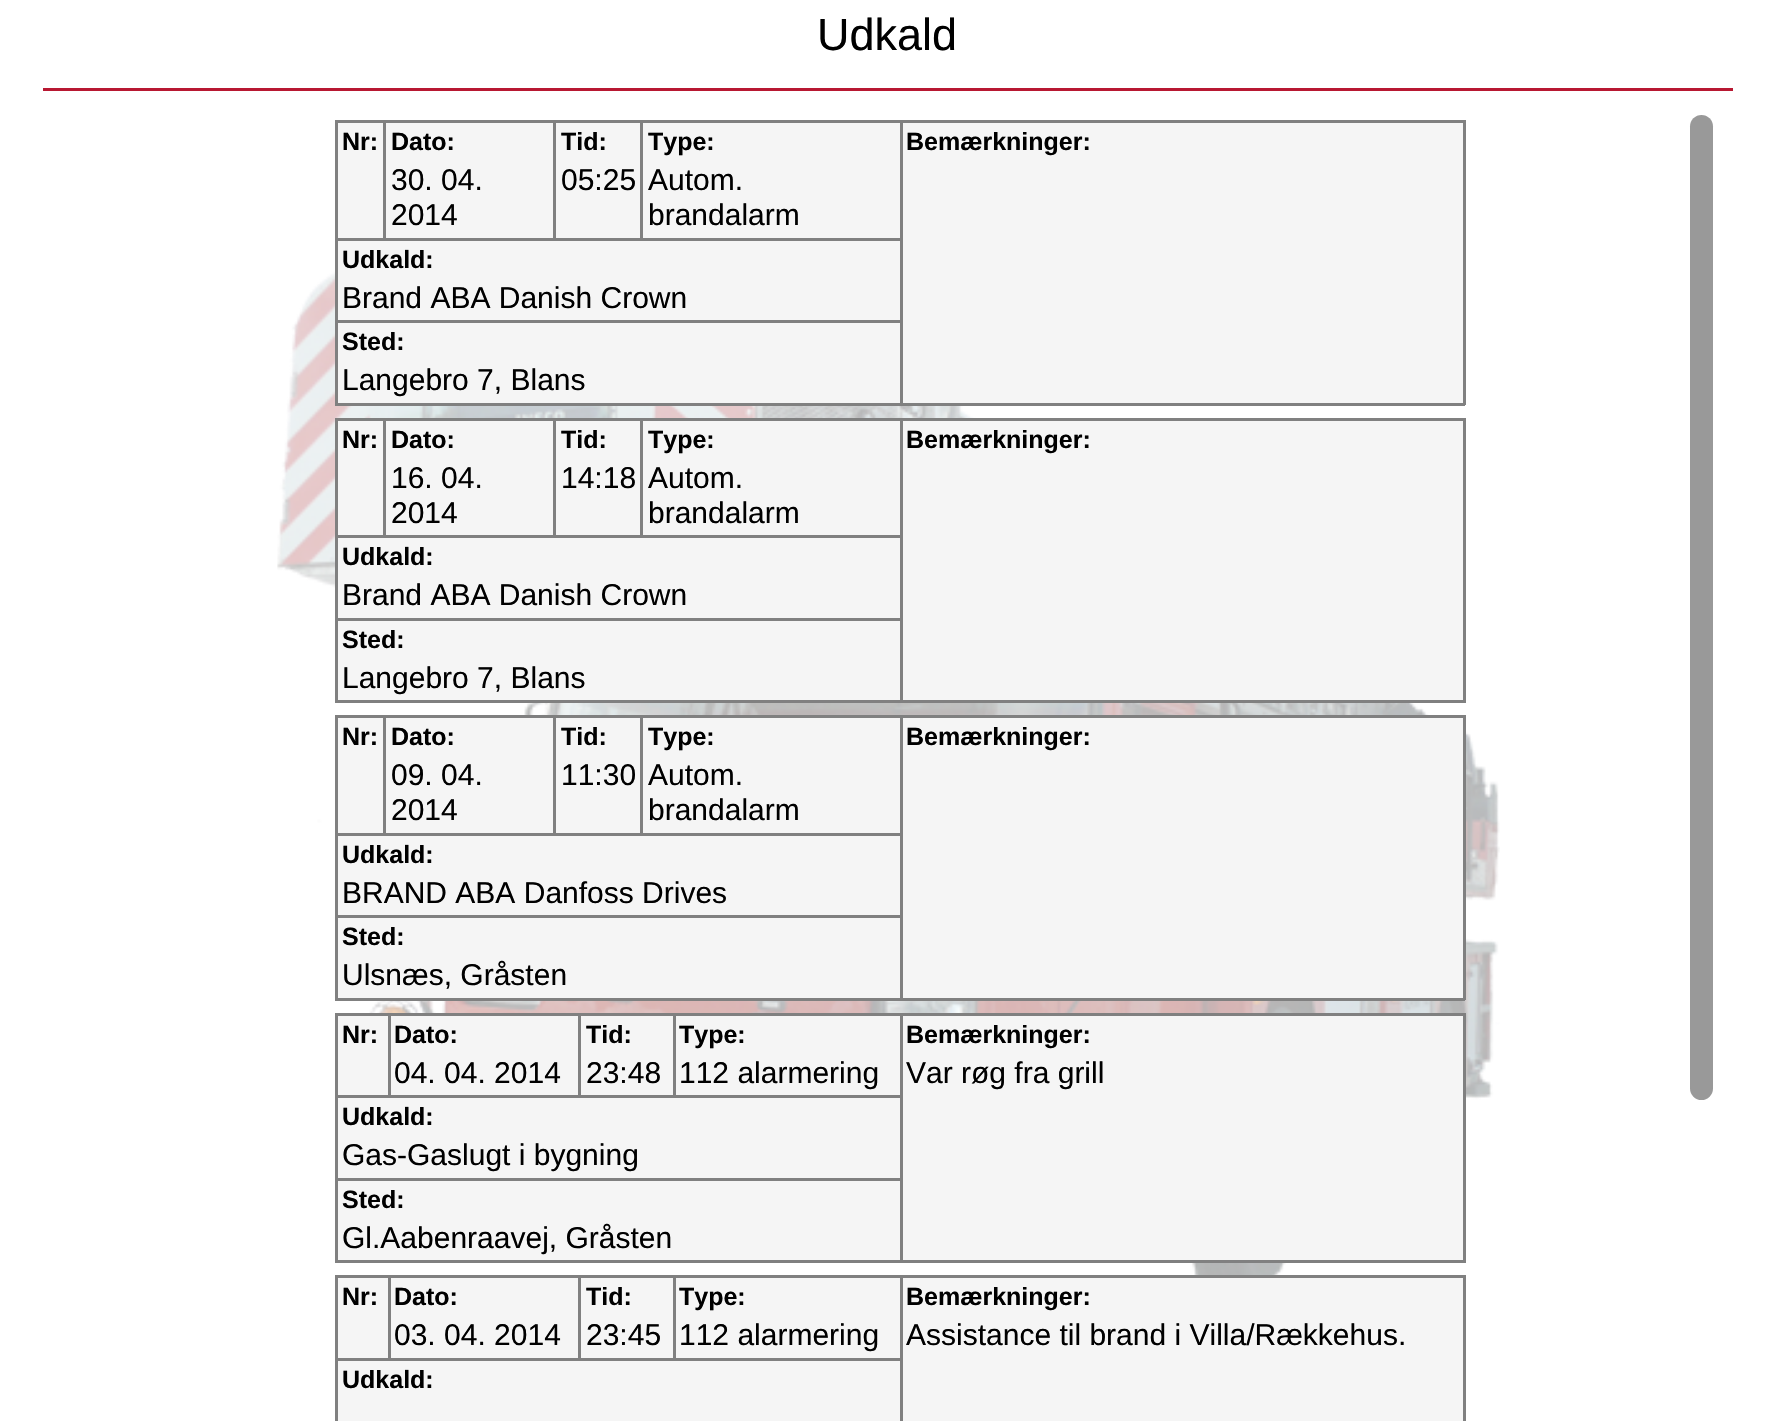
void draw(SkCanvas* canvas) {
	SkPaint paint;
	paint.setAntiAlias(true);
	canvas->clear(0xffffffff);
	canvas->drawImageRect(SkImages::DeferredFromEncodedData(SkData::MakeFromFileName("img1.png")), SkRect::MakeXYWH(277, 271, 1223, 1004), SkSamplingOptions());
	paint.setColor(0xffb81832);
	canvas->drawRect(SkRect::MakeXYWH(43, 88, 1690, 3), paint);
	SkFont f1(fontMgr->matchFamilyStyle("Liberation Sans", SkFontStyle::Normal()), 45);
	f1.setSubpixel(true);
	paint.setColor(0xff000000);
	canvas->drawString("Udkald", 817, 50, f1, paint);
	paint.setColor(0xfff5f5f5);
	canvas->drawRect(SkRect::MakeXYWH(338, 123, 1125, 280), paint);
	paint.setColor(0xff808080);
	canvas->drawRect(SkRect::MakeXYWH(900, 120, 565, 3), paint);
	canvas->drawRect(SkRect::MakeXYWH(1463, 120, 3, 285), paint);
	canvas->drawRect(SkRect::MakeXYWH(335, 403, 568, 3), paint);
	canvas->drawRect(SkRect::MakeXYWH(900, 403, 565, 3), paint);
	canvas->drawRect(SkRect::MakeXYWH(335, 238, 568, 3), paint);
	canvas->drawRect(SkRect::MakeXYWH(335, 320, 568, 3), paint);
	canvas->drawRect(SkRect::MakeXYWH(900, 120, 3, 285), paint);
	canvas->drawRect(SkRect::MakeXYWH(640, 120, 263, 3), paint);
	canvas->drawRect(SkRect::MakeXYWH(640, 120, 3, 120), paint);
	canvas->drawRect(SkRect::MakeXYWH(553, 120, 90, 3), paint);
	canvas->drawRect(SkRect::MakeXYWH(553, 120, 3, 120), paint);
	canvas->drawRect(SkRect::MakeXYWH(383, 120, 172, 3), paint);
	canvas->drawRect(SkRect::MakeXYWH(383, 120, 3, 120), paint);
	canvas->drawRect(SkRect::MakeXYWH(335, 120, 50, 3), paint);
	canvas->drawRect(SkRect::MakeXYWH(335, 320, 3, 85), paint);
	canvas->drawRect(SkRect::MakeXYWH(335, 238, 3, 85), paint);
	canvas->drawRect(SkRect::MakeXYWH(335, 120, 3, 120), paint);
	SkFont f2(fontMgr->matchFamilyStyle("Liberation Sans", SkFontStyle::Bold()), 25);
	f2.setSubpixel(true);
	paint.setColor(0xff000000);
	canvas->drawString("Nr:", 342, 150, f2, paint);
	canvas->drawString("Dato:", 391, 150, f2, paint);
	SkFont f3(fontMgr->matchFamilyStyle("Liberation Sans", SkFontStyle::Normal()), 30);
	f3.setSubpixel(true);
	canvas->drawString("30. 04.", 391, 190, f3, paint);
	canvas->drawString("2014", 391, 225, f3, paint);
	canvas->drawString("Tid:", 561, 150, f2, paint);
	canvas->drawString("05:25", 561, 190, f3, paint);
	canvas->drawString("Type:", 648, 150, f2, paint);
	canvas->drawString("Autom.", 648, 190, f3, paint);
	canvas->drawString("brandalarm", 648, 225, f3, paint);
	canvas->drawString("Bemærkninger:", 906, 150, f2, paint);
	canvas->drawString("Udkald:", 342, 268, f2, paint);
	canvas->drawString("Brand ABA Danish Crown", 342, 308, f3, paint);
	canvas->drawString("Sted:", 342, 350, f2, paint);
	canvas->drawString("Langebro 7, Blans", 342, 390, f3, paint);
	paint.setColor(0xfff5f5f5);
	canvas->drawRect(SkRect::MakeXYWH(338, 421, 1125, 279), paint);
	paint.setColor(0xff808080);
	canvas->drawRect(SkRect::MakeXYWH(900, 418, 565, 3), paint);
	canvas->drawRect(SkRect::MakeXYWH(1463, 418, 3, 285), paint);
	canvas->drawRect(SkRect::MakeXYWH(335, 700, 568, 3), paint);
	canvas->drawRect(SkRect::MakeXYWH(900, 700, 565, 3), paint);
	canvas->drawRect(SkRect::MakeXYWH(335, 535, 568, 3), paint);
	canvas->drawRect(SkRect::MakeXYWH(335, 618, 568, 3), paint);
	canvas->drawRect(SkRect::MakeXYWH(900, 418, 3, 285), paint);
	canvas->drawRect(SkRect::MakeXYWH(640, 418, 263, 3), paint);
	canvas->drawRect(SkRect::MakeXYWH(640, 418, 3, 120), paint);
	canvas->drawRect(SkRect::MakeXYWH(553, 418, 90, 3), paint);
	canvas->drawRect(SkRect::MakeXYWH(553, 418, 3, 120), paint);
	canvas->drawRect(SkRect::MakeXYWH(383, 418, 172, 3), paint);
	canvas->drawRect(SkRect::MakeXYWH(383, 418, 3, 120), paint);
	canvas->drawRect(SkRect::MakeXYWH(335, 418, 50, 3), paint);
	canvas->drawRect(SkRect::MakeXYWH(335, 618, 3, 85), paint);
	canvas->drawRect(SkRect::MakeXYWH(335, 535, 3, 85), paint);
	canvas->drawRect(SkRect::MakeXYWH(335, 418, 3, 120), paint);
	paint.setColor(0xff000000);
	canvas->drawString("Nr:", 342, 448, f2, paint);
	canvas->drawString("Dato:", 391, 448, f2, paint);
	canvas->drawString("16. 04.", 391, 488, f3, paint);
	canvas->drawString("2014", 391, 523, f3, paint);
	canvas->drawString("Tid:", 561, 448, f2, paint);
	canvas->drawString("14:18", 561, 488, f3, paint);
	canvas->drawString("Type:", 648, 448, f2, paint);
	canvas->drawString("Autom.", 648, 488, f3, paint);
	canvas->drawString("brandalarm", 648, 523, f3, paint);
	canvas->drawString("Bemærkninger:", 906, 448, f2, paint);
	canvas->drawString("Udkald:", 342, 565, f2, paint);
	canvas->drawString("Brand ABA Danish Crown", 342, 605, f3, paint);
	canvas->drawString("Sted:", 342, 648, f2, paint);
	canvas->drawString("Langebro 7, Blans", 342, 688, f3, paint);
	paint.setColor(0xfff5f5f5);
	canvas->drawRect(SkRect::MakeXYWH(338, 718, 1125, 280), paint);
	paint.setColor(0xff808080);
	canvas->drawRect(SkRect::MakeXYWH(900, 715, 565, 3), paint);
	canvas->drawRect(SkRect::MakeXYWH(1463, 715, 3, 285), paint);
	canvas->drawRect(SkRect::MakeXYWH(335, 998, 568, 3), paint);
	canvas->drawRect(SkRect::MakeXYWH(900, 998, 565, 3), paint);
	canvas->drawRect(SkRect::MakeXYWH(335, 833, 568, 3), paint);
	canvas->drawRect(SkRect::MakeXYWH(335, 915, 568, 3), paint);
	canvas->drawRect(SkRect::MakeXYWH(900, 715, 3, 285), paint);
	canvas->drawRect(SkRect::MakeXYWH(640, 715, 263, 3), paint);
	canvas->drawRect(SkRect::MakeXYWH(640, 715, 3, 120), paint);
	canvas->drawRect(SkRect::MakeXYWH(553, 715, 90, 3), paint);
	canvas->drawRect(SkRect::MakeXYWH(553, 715, 3, 120), paint);
	canvas->drawRect(SkRect::MakeXYWH(383, 715, 172, 3), paint);
	canvas->drawRect(SkRect::MakeXYWH(383, 715, 3, 120), paint);
	canvas->drawRect(SkRect::MakeXYWH(335, 715, 50, 3), paint);
	canvas->drawRect(SkRect::MakeXYWH(335, 915, 3, 85), paint);
	canvas->drawRect(SkRect::MakeXYWH(335, 833, 3, 85), paint);
	canvas->drawRect(SkRect::MakeXYWH(335, 715, 3, 120), paint);
	paint.setColor(0xff000000);
	canvas->drawString("Nr:", 342, 745, f2, paint);
	canvas->drawString("Dato:", 391, 745, f2, paint);
	canvas->drawString("09. 04.", 391, 785, f3, paint);
	canvas->drawString("2014", 391, 820, f3, paint);
	canvas->drawString("Tid:", 561, 745, f2, paint);
	canvas->drawString("11:30", 561, 785, f3, paint);
	canvas->drawString("Type:", 648, 745, f2, paint);
	canvas->drawString("Autom.", 648, 785, f3, paint);
	canvas->drawString("brandalarm", 648, 820, f3, paint);
	canvas->drawString("Bemærkninger:", 906, 745, f2, paint);
	canvas->drawString("Udkald:", 342, 863, f2, paint);
	canvas->drawString("BRAND ABA Danfoss Drives", 342, 903, f3, paint);
	canvas->drawString("Sted:", 342, 945, f2, paint);
	canvas->drawString("Ulsnæs, Gråsten", 342, 985, f3, paint);
	paint.setColor(0xfff5f5f5);
	canvas->drawRect(SkRect::MakeXYWH(338, 1016, 1125, 244), paint);
	paint.setColor(0xff808080);
	canvas->drawRect(SkRect::MakeXYWH(900, 1013, 565, 3), paint);
	canvas->drawRect(SkRect::MakeXYWH(1463, 1013, 3, 250), paint);
	canvas->drawRect(SkRect::MakeXYWH(335, 1260, 568, 3), paint);
	canvas->drawRect(SkRect::MakeXYWH(900, 1260, 565, 3), paint);
	canvas->drawRect(SkRect::MakeXYWH(335, 1095, 568, 3), paint);
	canvas->drawRect(SkRect::MakeXYWH(335, 1178, 568, 3), paint);
	canvas->drawRect(SkRect::MakeXYWH(900, 1013, 3, 250), paint);
	canvas->drawRect(SkRect::MakeXYWH(673, 1013, 230, 3), paint);
	canvas->drawRect(SkRect::MakeXYWH(673, 1013, 3, 85), paint);
	canvas->drawRect(SkRect::MakeXYWH(578, 1013, 97, 3), paint);
	canvas->drawRect(SkRect::MakeXYWH(578, 1013, 3, 85), paint);
	canvas->drawRect(SkRect::MakeXYWH(388, 1013, 192, 3), paint);
	canvas->drawRect(SkRect::MakeXYWH(388, 1013, 3, 85), paint);
	canvas->drawRect(SkRect::MakeXYWH(335, 1013, 55, 3), paint);
	canvas->drawRect(SkRect::MakeXYWH(335, 1178, 3, 85), paint);
	canvas->drawRect(SkRect::MakeXYWH(335, 1095, 3, 85), paint);
	canvas->drawRect(SkRect::MakeXYWH(335, 1013, 3, 85), paint);
	paint.setColor(0xff000000);
	canvas->drawString("Nr:", 342, 1043, f2, paint);
	canvas->drawString("Dato:", 394, 1043, f2, paint);
	canvas->drawString("04. 04. 2014", 394, 1083, f3, paint);
	canvas->drawString("Tid:", 586, 1043, f2, paint);
	canvas->drawString("23:48", 586, 1083, f3, paint);
	canvas->drawString("Type:", 679, 1043, f2, paint);
	canvas->drawString("112 alarmering", 679, 1083, f3, paint);
	canvas->drawString("Bemærkninger:", 906, 1043, f2, paint);
	canvas->drawString("Var røg fra grill", 906, 1083, f3, paint);
	canvas->drawString("Udkald:", 342, 1125, f2, paint);
	canvas->drawString("Gas-Gaslugt i bygning", 342, 1165, f3, paint);
	canvas->drawString("Sted:", 342, 1208, f2, paint);
	canvas->drawString("Gl.Aabenraavej, Gråsten", 342, 1248, f3, paint);
	paint.setColor(0xfff5f5f5);
	canvas->drawRect(SkRect::MakeXYWH(338, 1278, 1125, 143), paint);
	paint.setColor(0xff808080);
	canvas->drawRect(SkRect::MakeXYWH(900, 1275, 565, 3), paint);
	canvas->drawRect(SkRect::MakeXYWH(335, 1358, 568, 3), paint);
	canvas->drawRect(SkRect::MakeXYWH(900, 1275, 3, 146), paint);
	canvas->drawRect(SkRect::MakeXYWH(673, 1275, 230, 3), paint);
	canvas->drawRect(SkRect::MakeXYWH(673, 1275, 3, 85), paint);
	canvas->drawRect(SkRect::MakeXYWH(578, 1275, 97, 3), paint);
	canvas->drawRect(SkRect::MakeXYWH(578, 1275, 3, 85), paint);
	canvas->drawRect(SkRect::MakeXYWH(388, 1275, 192, 3), paint);
	canvas->drawRect(SkRect::MakeXYWH(388, 1275, 3, 85), paint);
	canvas->drawRect(SkRect::MakeXYWH(335, 1275, 55, 3), paint);
	canvas->drawRect(SkRect::MakeXYWH(335, 1358, 3, 63), paint);
	canvas->drawRect(SkRect::MakeXYWH(335, 1275, 3, 85), paint);
	paint.setColor(0xff000000);
	canvas->drawString("Nr:", 342, 1305, f2, paint);
	canvas->drawString("Dato:", 394, 1305, f2, paint);
	canvas->drawString("03. 04. 2014", 394, 1345, f3, paint);
	canvas->drawString("Tid:", 586, 1305, f2, paint);
	canvas->drawString("23:45", 586, 1345, f3, paint);
	canvas->drawString("Type:", 679, 1305, f2, paint);
	canvas->drawString("112 alarmering", 679, 1345, f3, paint);
	paint.setColor(0xff808080);
	canvas->drawRect(SkRect::MakeXYWH(1463, 1275, 3, 146), paint);
	paint.setColor(0xff000000);
	canvas->drawString("Bemærkninger:", 906, 1305, f2, paint);
	canvas->drawString("Assistance til brand i Villa/Rækkehus.", 906, 1345, f3, paint);
	canvas->drawString("Udkald:", 342, 1388, f2, paint);
	paint.setColor(0xff999999);
	canvas->drawRoundRect(SkRect::MakeXYWH(1690, 115, 23, 985), 11.5, 11.5, paint);
}
